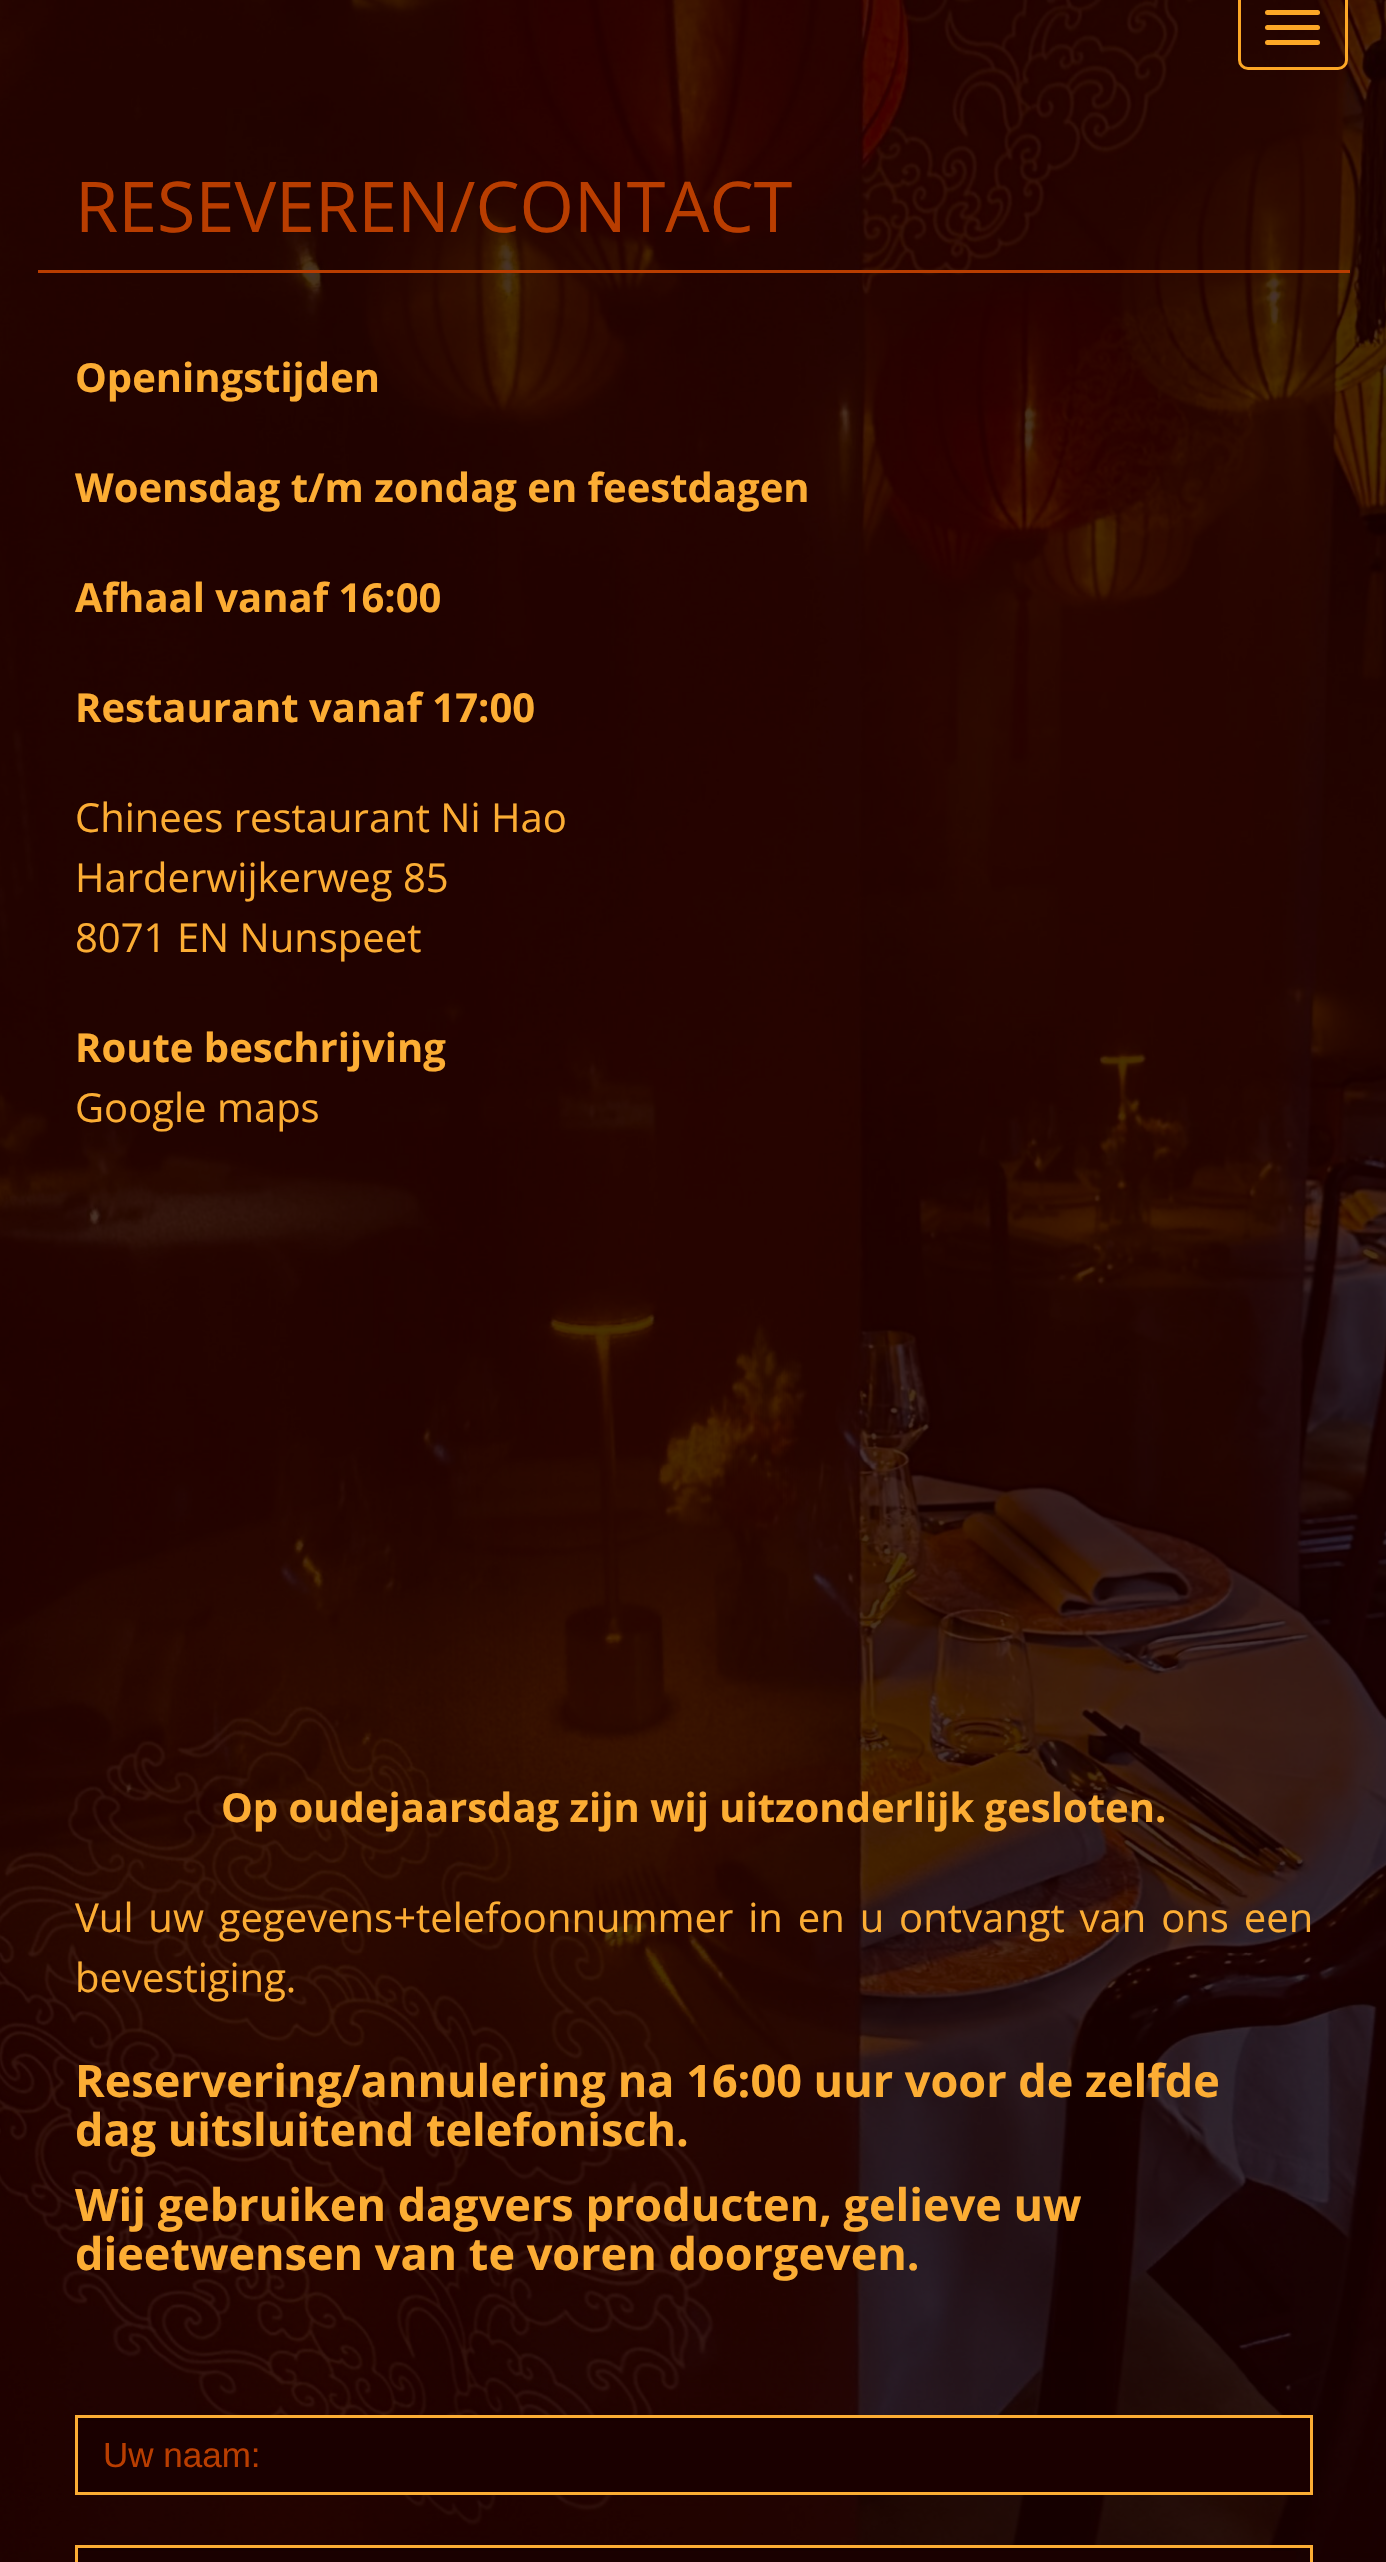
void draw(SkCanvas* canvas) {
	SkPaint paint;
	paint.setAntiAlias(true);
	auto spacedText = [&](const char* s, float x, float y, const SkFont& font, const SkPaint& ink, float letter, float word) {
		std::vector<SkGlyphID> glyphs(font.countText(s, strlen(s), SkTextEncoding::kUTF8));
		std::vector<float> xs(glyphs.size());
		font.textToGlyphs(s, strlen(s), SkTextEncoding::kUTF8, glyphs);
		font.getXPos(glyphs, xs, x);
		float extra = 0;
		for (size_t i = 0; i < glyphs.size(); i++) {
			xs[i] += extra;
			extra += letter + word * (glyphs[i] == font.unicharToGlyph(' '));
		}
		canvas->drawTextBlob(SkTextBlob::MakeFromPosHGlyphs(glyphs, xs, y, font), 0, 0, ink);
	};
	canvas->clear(0xffffffff);
	canvas->drawImageRect(SkImages::DeferredFromEncodedData(SkData::MakeFromFileName("img1.png")), SkRect::MakeXYWH(0, 0, 1386, 2562), SkSamplingOptions());
	paint.setStroke(true);
	paint.setStrokeWidth(3);
	paint.setColor(0xfffca726);
	canvas->drawRoundRect(SkRect::MakeXYWH(1239.5, -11.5, 107, 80), 8.5, 8.5, paint);
	paint.setStroke(false);
	canvas->drawRoundRect(SkRect::MakeXYWH(1265, 10, 55, 5), 2.5, 2.5, paint);
	canvas->drawRoundRect(SkRect::MakeXYWH(1265, 25, 55, 5), 2.5, 2.5, paint);
	canvas->drawRoundRect(SkRect::MakeXYWH(1265, 40, 55, 5), 2.5, 2.5, paint);
	paint.setColor(0xffb93d00);
	canvas->drawRect(SkRect::MakeXYWH(38, 270, 1312, 3), paint);
	SkFont f1(fontMgr->matchFamilyStyle("Open Sans", SkFontStyle::Normal()), 70);
	f1.setSubpixel(true);
	canvas->drawString("RESEVEREN/CONTACT", 75, 232, f1, paint);
	SkFont f2(fontMgr->matchFamilyStyle("Open Sans", SkFontStyle::Bold()), 40);
	f2.setSubpixel(true);
	paint.setColor(0xfffcad34);
	canvas->drawString("Openingstijden", 75, 392, f2, paint);
	canvas->drawString("Woensdag t/m zondag en feestdagen", 75, 502, f2, paint);
	canvas->drawString("Afhaal vanaf 16:00", 75, 612, f2, paint);
	canvas->drawString("Restaurant vanaf 17:00", 75, 722, f2, paint);
	SkFont f3(fontMgr->matchFamilyStyle("Open Sans", SkFontStyle::Normal()), 40);
	f3.setSubpixel(true);
	canvas->drawString("Chinees restaurant Ni Hao", 75, 832, f3, paint);
	canvas->drawString("Harderwijkerweg 85", 75, 892, f3, paint);
	canvas->drawString("8071 EN Nunspeet", 75, 952, f3, paint);
	canvas->drawString("Route beschrijving", 75, 1062, f2, paint);
	canvas->drawString("Google maps", 75, 1122, f3, paint);
	canvas->drawString("Op oudejaarsdag zijn wij uitzonderlijk gesloten.", 221, 1822, f2, paint);
	spacedText("Vul uw gegevens+telefoonnummer in en u ontvangt van ons een", 75, 1932, f3, paint, 0, 4.5);
	canvas->drawString("bevestiging.", 75, 1992, f3, paint);
	SkFont f4(fontMgr->matchFamilyStyle("Open Sans", SkFontStyle::Bold()), 45);
	f4.setSubpixel(true);
	canvas->drawString("Reservering/annulering na 16:00 uur voor de zelfde", 75, 2097, f4, paint);
	canvas->drawString("dag uitsluitend telefonisch.", 75, 2146, f4, paint);
	canvas->drawString("Wij gebruiken dagvers producten, gelieve uw", 75, 2221, f4, paint);
	canvas->drawString("dieetwensen van te voren doorgeven.", 75, 2270, f4, paint);
	paint.setColor(0xff1a0000);
	canvas->drawRect(SkRect::MakeXYWH(78, 2421, 1232, 71), paint);
	paint.setColor(0xff180000);
	canvas->drawRect(SkRect::MakeXYWH(78, 2418, 1232, 3), paint);
	paint.setStroke(true);
	paint.setColor(0xfffcad34);
	canvas->drawRect(SkRect::MakeXYWH(76.5, 2416.5, 1235, 77), paint);
	SkFont f5(fontMgr->matchFamilyStyle("Liberation Sans", SkFontStyle::Normal()), 35);
	f5.setSubpixel(true);
	paint.setStroke(false);
	paint.setColor(0xffb93d00);
	canvas->drawString("Uw naam:", 103, 2467, f5, paint);
	paint.setColor(0xff1a0000);
	canvas->drawRect(SkRect::MakeXYWH(78, 2551, 1218, 11), paint);
	paint.setColor(0xff180000);
	canvas->drawRect(SkRect::MakeXYWH(78, 2548, 1192, 3), paint);
	paint.setStroke(true);
	paint.setColor(0xfffcad34);
	canvas->drawRect(SkRect::MakeXYWH(76.5, 2546.5, 1235, 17), paint);
}
